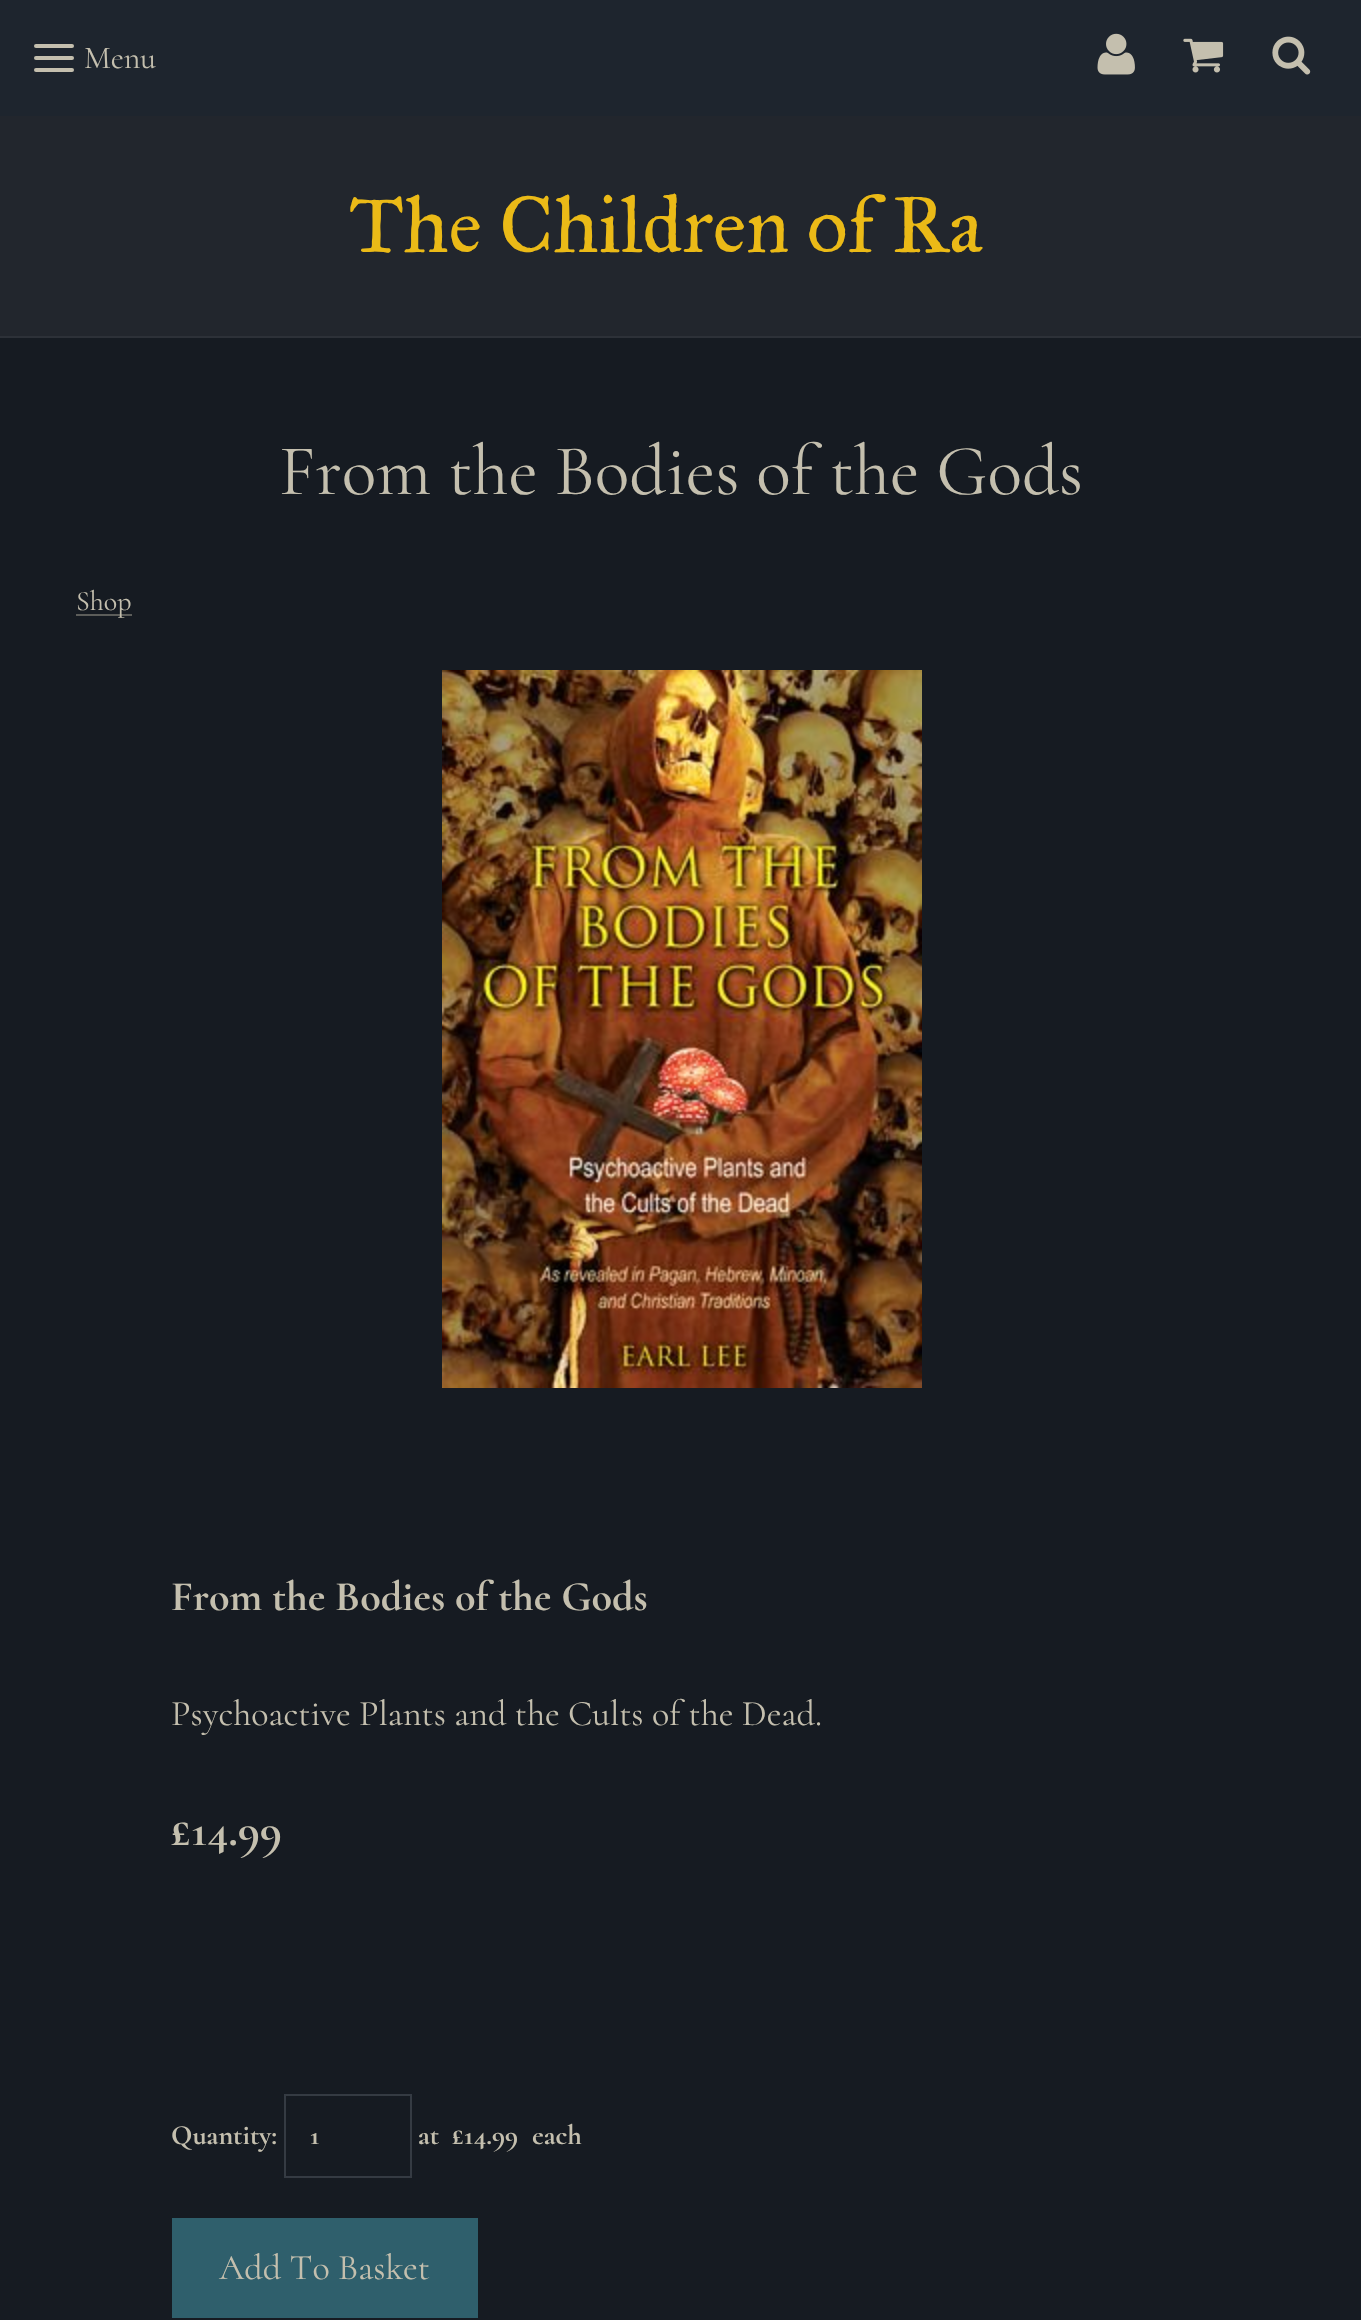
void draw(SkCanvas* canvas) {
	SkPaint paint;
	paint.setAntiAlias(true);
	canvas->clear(0xff161b22);
	paint.setColor(0xff22262d);
	canvas->drawRect(SkRect::MakeXYWH(0, 116, 1361, 220), paint);
	paint.setColor(0xff2d3138);
	canvas->drawRect(SkRect::MakeXYWH(0, 336, 1361, 2), paint);
	paint.setColor(0xff1e252e);
	canvas->drawRect(SkRect::MakeXYWH(0, 0, 1361, 116), paint);
	paint.setColor(0xffc4bfae);
	canvas->drawRoundRect(SkRect::MakeXYWH(34, 56, 40, 4), 2, 2, paint);
	canvas->drawRoundRect(SkRect::MakeXYWH(34, 44, 40, 4), 2, 2, paint);
	canvas->drawRoundRect(SkRect::MakeXYWH(34, 68, 40, 4), 2, 2, paint);
	SkFont f1(fontMgr->matchFamilyStyle("Cormorant", SkFontStyle::Normal()), 32);
	f1.setSubpixel(true);
	canvas->drawString("Menu", 84, 68, f1, paint);
	canvas->drawImageRect(SkImages::DeferredFromEncodedData(SkData::MakeFromFileName("img1.png")), SkRect::MakeXYWH(1097, 33, 38, 42), SkSamplingOptions());
	canvas->drawImageRect(SkImages::DeferredFromEncodedData(SkData::MakeFromFileName("img2.png")), SkRect::MakeXYWH(1183, 38, 41, 35), SkSamplingOptions());
	canvas->drawImageRect(SkImages::DeferredFromEncodedData(SkData::MakeFromFileName("img3.png")), SkRect::MakeXYWH(1272, 36, 39, 39), SkSamplingOptions());
	SkFont f2(fontMgr->matchFamilyStyle("IM FELL Great Primer", SkFontStyle::Normal()), 80.25);
	f2.setSubpixel(true);
	paint.setColor(0xffebba17);
	canvas->drawString("The Children of Ra", 349, 252, f2, paint);
	SkFont f3(fontMgr->matchFamilyStyle("Cormorant Garamond", SkFontStyle::Normal()), 72);
	f3.setSubpixel(true);
	paint.setColor(0xffc4bfae);
	canvas->drawString("From the Bodies of the Gods", 279, 494, f3, paint);
	paint.setColor(0xff5c5d5a);
	canvas->drawRect(SkRect::MakeXYWH(76, 614, 56, 2), paint);
	SkFont f4(fontMgr->matchFamilyStyle("Cormorant", SkFontStyle::Normal()), 28);
	f4.setSubpixel(true);
	paint.setColor(0xffc4bfae);
	canvas->drawString("Shop", 76, 610, f4, paint);
	canvas->drawImageRect(SkImages::DeferredFromEncodedData(SkData::MakeFromFileName("img4.png")), SkRect::MakeXYWH(442, 670, 480, 718), SkSamplingOptions());
	SkFont f5(fontMgr->matchFamilyStyle("Cormorant", SkFontStyle::Bold()), 42.1);
	f5.setSubpixel(true);
	canvas->drawString("From the Bodies of the Gods", 171, 1610, f5, paint);
	SkFont f6(fontMgr->matchFamilyStyle("Cormorant", SkFontStyle::Normal()), 36);
	f6.setSubpixel(true);
	canvas->drawString("Psychoactive Plants and the Cults of the Dead.", 171, 1725, f6, paint);
	SkFont f7(fontMgr->matchFamilyStyle("Cormorant", SkFontStyle::Bold()), 47);
	f7.setSubpixel(true);
	canvas->drawString("£14.99", 171, 1845, f7, paint);
	SkFont f8(fontMgr->matchFamilyStyle("Cormorant", SkFontStyle::Bold()), 28);
	f8.setSubpixel(true);
	canvas->drawString("Quantity:", 171, 2144, f8, paint);
	paint.setStroke(true);
	paint.setStrokeWidth(2);
	paint.setColor(0xff353b43);
	canvas->drawRect(SkRect::MakeXYWH(285, 2095, 126, 82), paint);
	paint.setStroke(false);
	paint.setColor(0xffc4bfae);
	canvas->drawString("1", 310, 2144, f8, paint);
	canvas->drawString("at", 418, 2144, f8, paint);
	canvas->drawString("£14.99", 452, 2144, f8, paint);
	canvas->drawString("each", 532, 2144, f8, paint);
	paint.setColor(0xff2f5f6c);
	canvas->drawRect(SkRect::MakeXYWH(172, 2218, 306, 100), paint);
	paint.setColor(0xffc4bfae);
	canvas->drawString("Add To Basket", 219, 2279, f6, paint);
}
